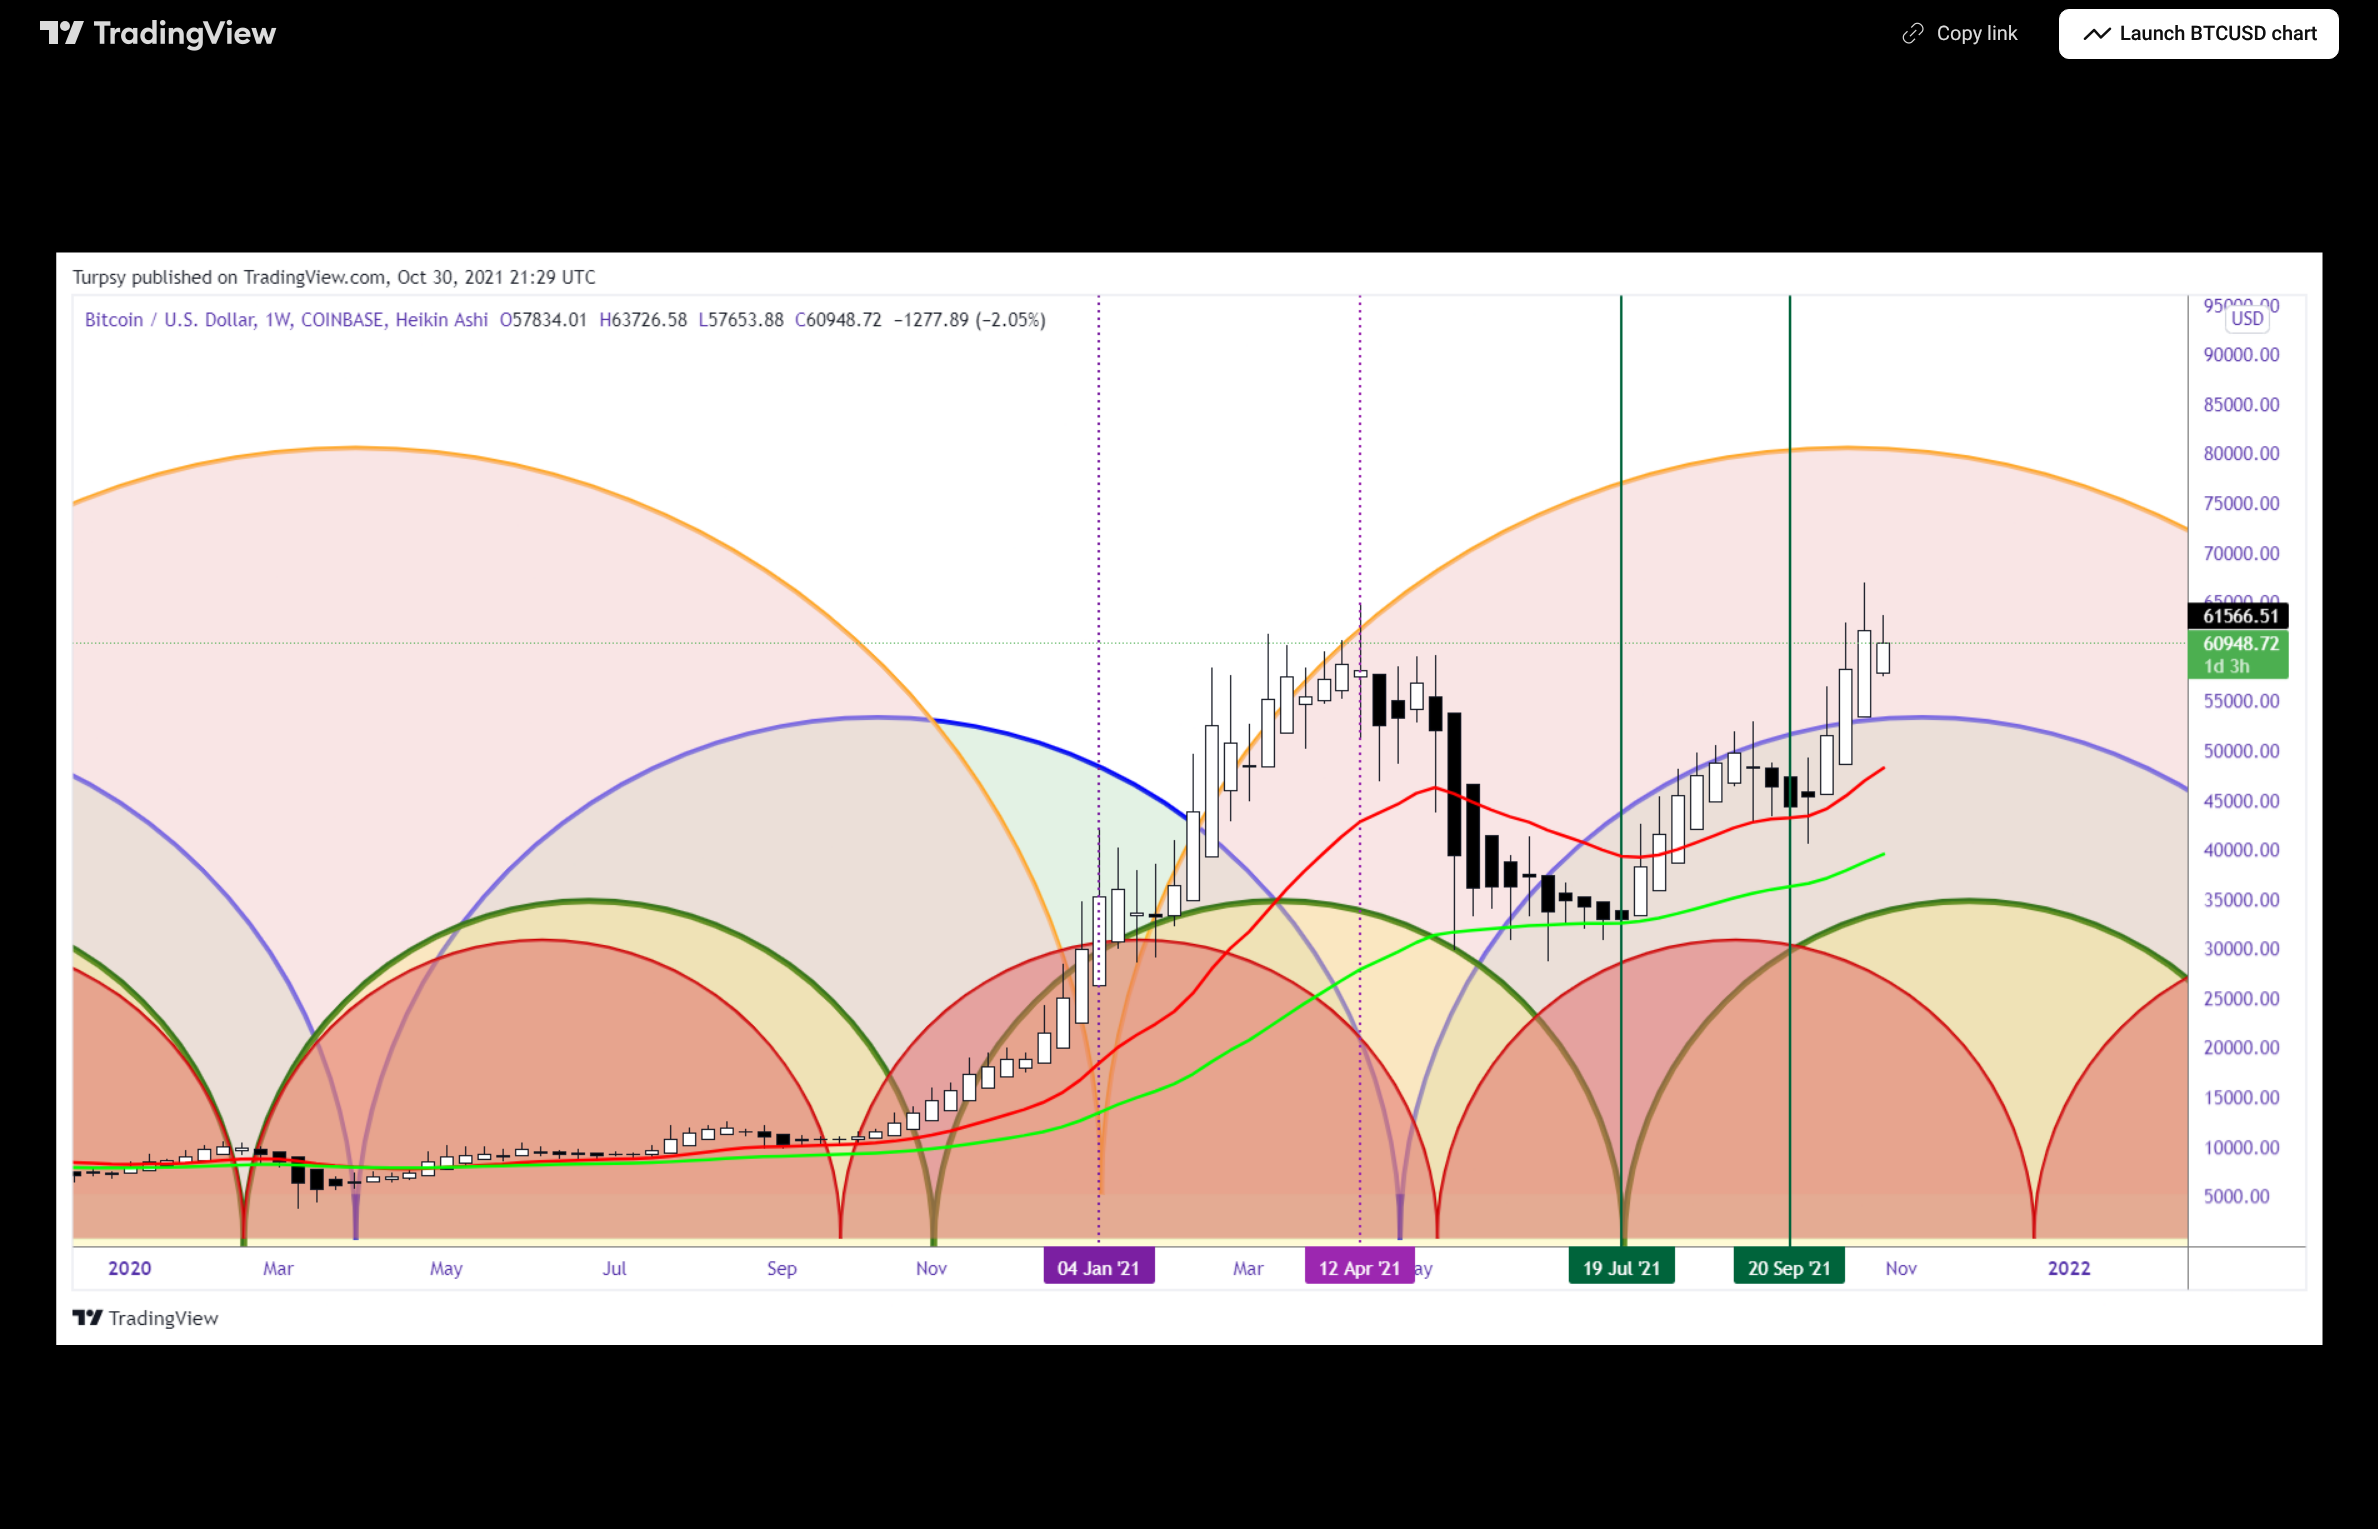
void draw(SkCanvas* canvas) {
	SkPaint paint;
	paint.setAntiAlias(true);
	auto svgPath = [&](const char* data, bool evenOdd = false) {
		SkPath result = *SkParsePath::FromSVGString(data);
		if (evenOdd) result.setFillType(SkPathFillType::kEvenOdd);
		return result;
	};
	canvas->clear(0xff000000);
	paint.setColor(0xffdbdbdb);
	canvas->drawPath(svgPath("M58 44H49V30H40V21H58ZM75 44H65L74 21H84Z"), paint);
	canvas->drawCircle(65, 26, 5, paint);
	canvas->drawImageRect(SkImages::DeferredFromEncodedData(SkData::MakeFromFileName("img1.png")), SkRect::MakeXYWH(94, 19, 183, 32), SkSamplingOptions());
	canvas->drawImageRect(SkImages::DeferredFromEncodedData(SkData::MakeFromFileName("img2.png")), SkRect::MakeXYWH(1902, 22, 22, 22), SkSamplingOptions());
	SkFont f1(fontMgr->matchFamilyStyle("Roboto", SkFontStyle::Normal()), 20);
	f1.setSubpixel(true);
	canvas->drawString("Copy link", 1937, 40, f1, paint);
	paint.setColor(0xffffffff);
	canvas->drawRoundRect(SkRect::MakeXYWH(2059.5, 9.5, 279, 49), 9.5, 9.5, paint);
	paint.setStroke(true);
	paint.setStrokeWidth(1);
	canvas->drawRoundRect(SkRect::MakeXYWH(2059.5, 9.5, 279, 49), 9.5, 9.5, paint);
	canvas->drawImageRect(SkImages::DeferredFromEncodedData(SkData::MakeFromFileName("img3.png")), SkRect::MakeXYWH(2083, 27, 29, 13), SkSamplingOptions());
	SkFont f2(fontMgr->matchFamilyStyle("Roboto", SkFontStyle(500, SkFontStyle::kNormal_Width, SkFontStyle::kUpright_Slant)), 20);
	f2.setSubpixel(true);
	paint.setStroke(false);
	paint.setColor(0xff0f0f0f);
	canvas->drawString("Launch BTCUSD chart", 2120, 40, f2, paint);
	canvas->drawImageRect(SkImages::DeferredFromEncodedData(SkData::MakeFromFileName("img4.png")), SkRect::MakeXYWH(56, 252, 2267, 1093), SkSamplingOptions());
}
